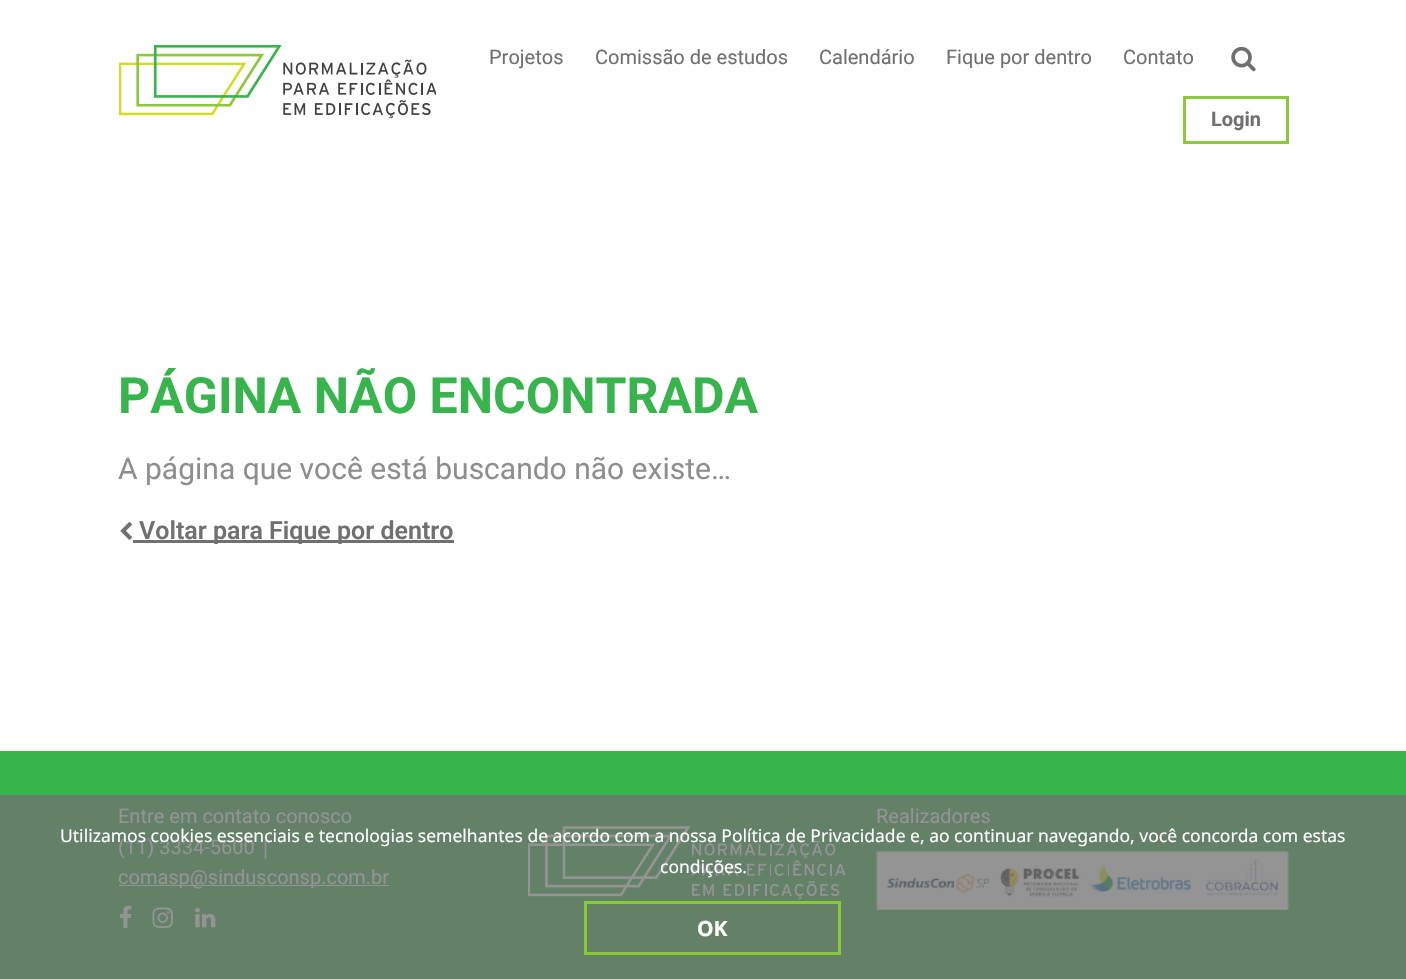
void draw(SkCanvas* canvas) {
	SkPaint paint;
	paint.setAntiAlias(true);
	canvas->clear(0xffffffff);
	canvas->drawImageRect(SkImages::DeferredFromEncodedData(SkData::MakeFromFileName("img1.png")), SkRect::MakeXYWH(119, 45, 317, 74), SkSamplingOptions());
	SkFont f1(fontMgr->matchFamilyStyle("Roboto", SkFontStyle::Normal()), 20);
	f1.setSubpixel(true);
	paint.setColor(0xff707070);
	canvas->drawString("Projetos", 489, 64, f1, paint);
	canvas->drawString("Comissão de estudos", 595, 64, f1, paint);
	canvas->drawString("Calendário", 819, 64, f1, paint);
	canvas->drawString("Fique por dentro", 946, 64, f1, paint);
	canvas->drawString("Contato", 1123, 64, f1, paint);
	canvas->drawImageRect(SkImages::DeferredFromEncodedData(SkData::MakeFromFileName("img2.png")), SkRect::MakeXYWH(1231, 46, 25, 26), SkSamplingOptions());
	paint.setStroke(true);
	paint.setStrokeWidth(3);
	paint.setColor(0xff8cc83c);
	canvas->drawRect(SkRect::MakeXYWH(1184.5, 97.5, 103, 45), paint);
	SkFont f2(fontMgr->matchFamilyStyle("Roboto", SkFontStyle::Bold()), 20);
	f2.setSubpixel(true);
	paint.setStroke(false);
	paint.setColor(0xff707070);
	canvas->drawString("Login", 1211, 126, f2, paint);
	SkFont f3(fontMgr->matchFamilyStyle("Roboto", SkFontStyle::Bold()), 50);
	f3.setSubpixel(true);
	paint.setColor(0xff37b44b);
	canvas->drawString("PÁGINA NÃO ENCONTRADA", 118, 413, f3, paint);
	SkFont f4(fontMgr->matchFamilyStyle("Roboto", SkFontStyle::Normal()), 30);
	f4.setSubpixel(true);
	paint.setColor(0xff8e8e8e);
	canvas->drawString("A página que você está buscando não existe…", 118, 479, f4, paint);
	canvas->drawImageRect(SkImages::DeferredFromEncodedData(SkData::MakeFromFileName("img3.png")), SkRect::MakeXYWH(120, 522, 12, 18), SkSamplingOptions());
	paint.setColor(0xff707070);
	canvas->drawRect(SkRect::MakeXYWH(133, 540, 321, 3), paint);
	SkFont f5(fontMgr->matchFamilyStyle("Roboto", SkFontStyle(600, SkFontStyle::kNormal_Width, SkFontStyle::kUpright_Slant)), 25);
	f5.setSubpixel(true);
	canvas->drawString("Voltar para Fique por dentro", 139, 539, f5, paint);
	paint.setColor(0xff37b44b);
	canvas->drawRect(SkRect::MakeXYWH(0, 751, 1406, 44), paint);
	paint.setColor(0xff628167);
	canvas->drawRect(SkRect::MakeXYWH(0, 795, 1406, 184), paint);
	paint.setColor(0xff949494);
	canvas->drawString("Entre em contato conosco", 118, 823, f1, paint);
	canvas->drawString("(11) 3334-5600", 118, 854, f1, paint);
	SkFont f6(fontMgr->matchFamilyStyle("Noto Sans", SkFontStyle::Normal()), 20);
	f6.setSubpixel(true);
	canvas->drawString("|", 260, 854, f6, paint);
	canvas->drawRect(SkRect::MakeXYWH(119, 885, 270, 1), paint);
	canvas->drawString("comasp@sindusconsp.com.br", 118, 884, f1, paint);
	canvas->drawImageRect(SkImages::DeferredFromEncodedData(SkData::MakeFromFileName("img4.png")), SkRect::MakeXYWH(120, 905, 12, 23), SkSamplingOptions());
	canvas->drawImageRect(SkImages::DeferredFromEncodedData(SkData::MakeFromFileName("img5.png")), SkRect::MakeXYWH(152, 907, 21, 21), SkSamplingOptions());
	canvas->drawImageRect(SkImages::DeferredFromEncodedData(SkData::MakeFromFileName("img6.png")), SkRect::MakeXYWH(195, 907, 21, 21), SkSamplingOptions());
	canvas->drawString("Realizadores", 876, 823, f1, paint);
	canvas->drawImageRect(SkImages::DeferredFromEncodedData(SkData::MakeFromFileName("img7.png")), SkRect::MakeXYWH(876, 851, 413, 59), SkSamplingOptions());
	canvas->drawImageRect(SkImages::DeferredFromEncodedData(SkData::MakeFromFileName("img8.png")), SkRect::MakeXYWH(528, 826, 317, 74), SkSamplingOptions());
	SkFont f7(fontMgr->matchFamilyStyle("Noto Sans", SkFontStyle::Normal()), 17.5);
	f7.setSubpixel(true);
	paint.setColor(0xffffffff);
	canvas->drawString("Utilizamos cookies essenciais e tecnologias semelhantes de acordo com a nossa Política de Privacidade e, ao continuar navegando, você concorda com estas", 60, 842, f7, paint);
	canvas->drawString("condições.", 660, 873, f7, paint);
	paint.setStroke(true);
	paint.setColor(0xff8cc83c);
	canvas->drawRect(SkRect::MakeXYWH(585.5, 902.5, 254, 51), paint);
	SkFont f8(fontMgr->matchFamilyStyle("Noto Sans", SkFontStyle::Bold()), 21);
	f8.setSubpixel(true);
	paint.setStroke(false);
	paint.setColor(0xffffffff);
	canvas->drawString("OK", 697, 936, f8, paint);
}
